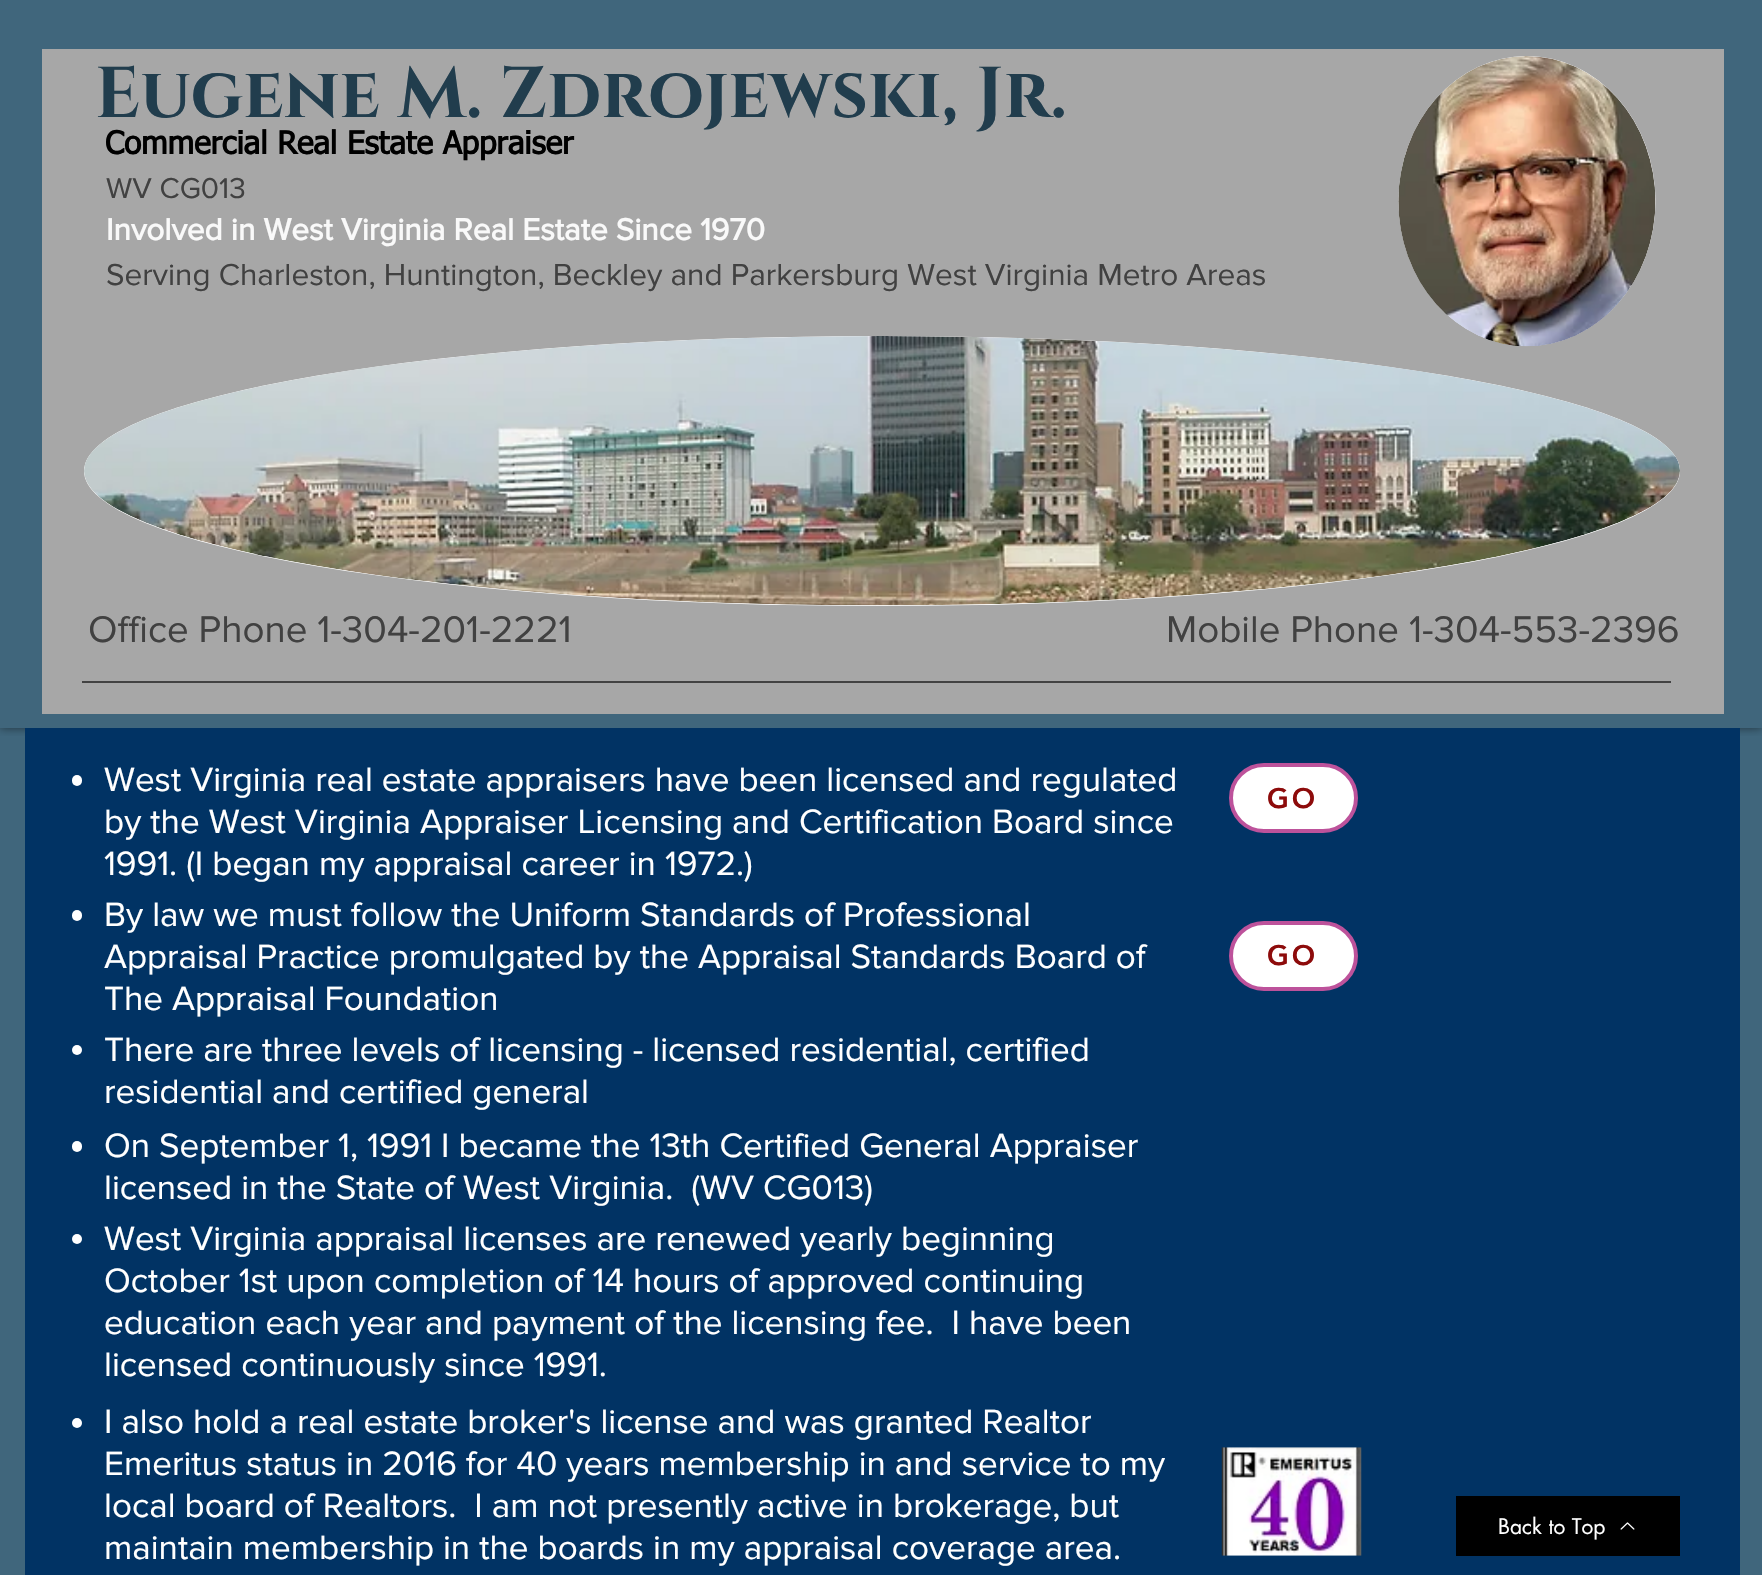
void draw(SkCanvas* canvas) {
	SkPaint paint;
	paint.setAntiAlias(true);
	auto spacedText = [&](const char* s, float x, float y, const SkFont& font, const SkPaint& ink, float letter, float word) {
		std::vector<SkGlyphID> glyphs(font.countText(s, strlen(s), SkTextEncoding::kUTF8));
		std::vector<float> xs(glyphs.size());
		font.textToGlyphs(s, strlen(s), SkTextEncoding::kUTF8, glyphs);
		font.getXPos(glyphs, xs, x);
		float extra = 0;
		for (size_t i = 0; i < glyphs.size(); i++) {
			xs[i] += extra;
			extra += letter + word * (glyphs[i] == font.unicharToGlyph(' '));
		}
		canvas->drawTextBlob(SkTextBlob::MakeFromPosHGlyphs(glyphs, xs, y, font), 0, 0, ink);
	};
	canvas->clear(0xff40667c);
	canvas->save();
	canvas->clipRect(SkRect::MakeXYWH(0, 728, 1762, 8));
	paint.setColor(0x80000000);
	paint.setMaskFilter(SkMaskFilter::MakeBlur(kNormal_SkBlurStyle, 4.5));
	canvas->drawRect(SkRect::MakeXYWH(0, 0, 1762, 728), paint);
	paint.setMaskFilter(nullptr);
	canvas->restore();
	paint.setColor(0xffa7a7a7);
	canvas->drawRect(SkRect::MakeXYWH(42, 49, 1682, 665), paint);
	SkFont f1(fontMgr->matchFamilyStyle("Cinzel", SkFontStyle::Bold()), 71.75);
	f1.setSubpixel(true);
	paint.setColor(0xff213d4d);
	canvas->drawString("Eugene M. Zdrojewski, Jr.", 95, 117, f1, paint);
	paint.setColor(0xffffffff);
	canvas->drawOval(SkRect::MakeXYWH(84, 336, 1596, 270), paint);
	canvas->drawImageRect(SkImages::DeferredFromEncodedData(SkData::MakeFromFileName("img2.png")), SkRect::MakeXYWH(84, 336, 1596, 270), SkSamplingOptions());
	canvas->drawOval(SkRect::MakeXYWH(1398.5, 56, 257, 290), paint);
	canvas->drawImageRect(SkImages::DeferredFromEncodedData(SkData::MakeFromFileName("img1.png")), SkRect::MakeXYWH(1398, 56, 258, 291), SkSamplingOptions());
	SkFont f2(fontMgr->matchFamilyStyle("tahoma", SkFontStyle::Bold()), 31.5);
	f2.setSubpixel(true);
	paint.setColor(0xff000000);
	canvas->drawString("Commercial Real Estate Appraiser", 105, 154, f2, paint);
	SkFont f3(fontMgr->matchFamilyStyle("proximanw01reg", SkFontStyle::Normal()), 29.75);
	f3.setSubpixel(true);
	paint.setColor(0xff414141);
	canvas->drawString("WV CG013", 106, 198, f3, paint);
	SkFont f4(fontMgr->matchFamilyStyle("proximanw01reg", SkFontStyle::Bold()), 31.5);
	f4.setSubpixel(true);
	paint.setColor(0xfff9f9f9);
	canvas->drawString("Involved in West Virginia Real Estate Since 1970", 106, 240, f4, paint);
	SkFont f5(fontMgr->matchFamilyStyle("proximanw01reg", SkFontStyle::Normal()), 31.5);
	f5.setSubpixel(true);
	paint.setColor(0xff414141);
	canvas->drawString("Serving Charleston, Huntington, Beckley and Parkersburg West Virginia Metro Areas", 106, 285, f5, paint);
	SkFont f6(fontMgr->matchFamilyStyle("proximanw01reg", SkFontStyle::Normal()), 38.5);
	f6.setSubpixel(true);
	canvas->drawString("Office Phone 1-304-201-2221", 88, 642, f6, paint);
	canvas->drawString("Mobile Phone 1-304-553-2396", 1166, 642, f6, paint);
	paint.setColor(0xff424242);
	canvas->drawRect(SkRect::MakeXYWH(82, 681, 1589, 2), paint);
	paint.setColor(0xff013364);
	canvas->drawRect(SkRect::MakeXYWH(25, 728, 1715, 847), paint);
	paint.setColor(0xffffffff);
	canvas->drawRoundRect(SkRect::MakeXYWH(72, 775, 10, 11), 5, 5, paint);
	SkFont f7(fontMgr->matchFamilyStyle("proximanw01reg", SkFontStyle::Normal()), 35);
	f7.setSubpixel(true);
	canvas->drawString("West Virginia real estate appraisers have been licensed and regulated", 104, 791, f7, paint);
	canvas->drawString("by the West Virginia Appraiser Licensing and Certification Board since", 104, 833, f7, paint);
	canvas->drawString("1991. (I began my appraisal career in 1972.)", 104, 875, f7, paint);
	canvas->drawRoundRect(SkRect::MakeXYWH(1231, 765, 125, 66), 33, 33, paint);
	paint.setStroke(true);
	paint.setStrokeWidth(4);
	paint.setColor(0xffbd529b);
	canvas->drawRoundRect(SkRect::MakeXYWH(1231, 765, 125, 66), 33, 33, paint);
	SkFont f8(fontMgr->matchFamilyStyle("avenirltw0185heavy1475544", SkFontStyle(900, SkFontStyle::kNormal_Width, SkFontStyle::kUpright_Slant)), 28);
	f8.setSubpixel(true);
	paint.setStroke(false);
	paint.setColor(0xff8d0b0b);
	spacedText("GO", 1267, 808, f8, paint, 3, 0);
	paint.setColor(0xffffffff);
	canvas->drawRoundRect(SkRect::MakeXYWH(72, 910, 10, 11), 5, 5, paint);
	canvas->drawString("By law we must follow the Uniform Standards of Professional", 104, 926, f7, paint);
	canvas->drawString("Appraisal Practice promulgated by the Appraisal Standards Board of", 104, 968, f7, paint);
	canvas->drawString("The Appraisal Foundation", 104, 1010, f7, paint);
	canvas->drawRoundRect(SkRect::MakeXYWH(1231, 923, 125, 66), 33, 33, paint);
	paint.setStroke(true);
	paint.setColor(0xffbd529b);
	canvas->drawRoundRect(SkRect::MakeXYWH(1231, 923, 125, 66), 33, 33, paint);
	paint.setStroke(false);
	paint.setColor(0xff8d0b0b);
	spacedText("GO", 1267, 965, f8, paint, 3, 0);
	paint.setColor(0xffffffff);
	canvas->drawCircle(77, 1050, 5, paint);
	canvas->drawString("There are three levels of licensing - licensed residential, certified", 104, 1061, f7, paint);
	canvas->drawString("residential and certified general", 104, 1103, f7, paint);
	canvas->drawRoundRect(SkRect::MakeXYWH(72, 1141, 10, 11), 5, 5, paint);
	canvas->drawString("On September 1, 1991 I became the 13th Certified General Appraiser", 104, 1157, f7, paint);
	canvas->drawString("licensed in the State of West Virginia.  (WV CG013)", 104, 1199, f7, paint);
	canvas->drawCircle(77, 1239, 5, paint);
	canvas->drawString("West Virginia appraisal licenses are renewed yearly beginning", 104, 1250, f7, paint);
	canvas->drawString("October 1st upon completion of 14 hours of approved continuing", 104, 1292, f7, paint);
	canvas->drawString("education each year and payment of the licensing fee.  I have been", 104, 1334, f7, paint);
	canvas->drawString("licensed continuously since 1991.", 104, 1376, f7, paint);
	canvas->drawCircle(77, 1423, 5, paint);
	canvas->drawString("I also hold a real estate broker's license and was granted Realtor", 104, 1433, f7, paint);
	canvas->drawString("Emeritus status in 2016 for 40 years membership in and service to my", 104, 1475, f7, paint);
	canvas->drawString("local board of Realtors.  I am not presently active in brokerage, but", 104, 1517, f7, paint);
	canvas->drawString("maintain membership in the boards in my appraisal coverage area.", 104, 1559, f7, paint);
	canvas->drawImageRect(SkImages::DeferredFromEncodedData(SkData::MakeFromFileName("img3.png")), SkRect::MakeXYWH(1221, 1447, 141, 109), SkSamplingOptions());
	paint.setColor(0xff000000);
	canvas->drawRect(SkRect::MakeXYWH(1456, 1496, 224, 60), paint);
	SkFont f9(fontMgr->matchFamilyStyle("futura", SkFontStyle::Normal()), 21);
	f9.setSubpixel(true);
	paint.setColor(0xffffffff);
	canvas->drawString("Back to Top", 1498, 1534, f9, paint);
	canvas->drawImageRect(SkImages::DeferredFromEncodedData(SkData::MakeFromFileName("img4.png")), SkRect::MakeXYWH(1620, 1522, 15, 8), SkSamplingOptions());
}
